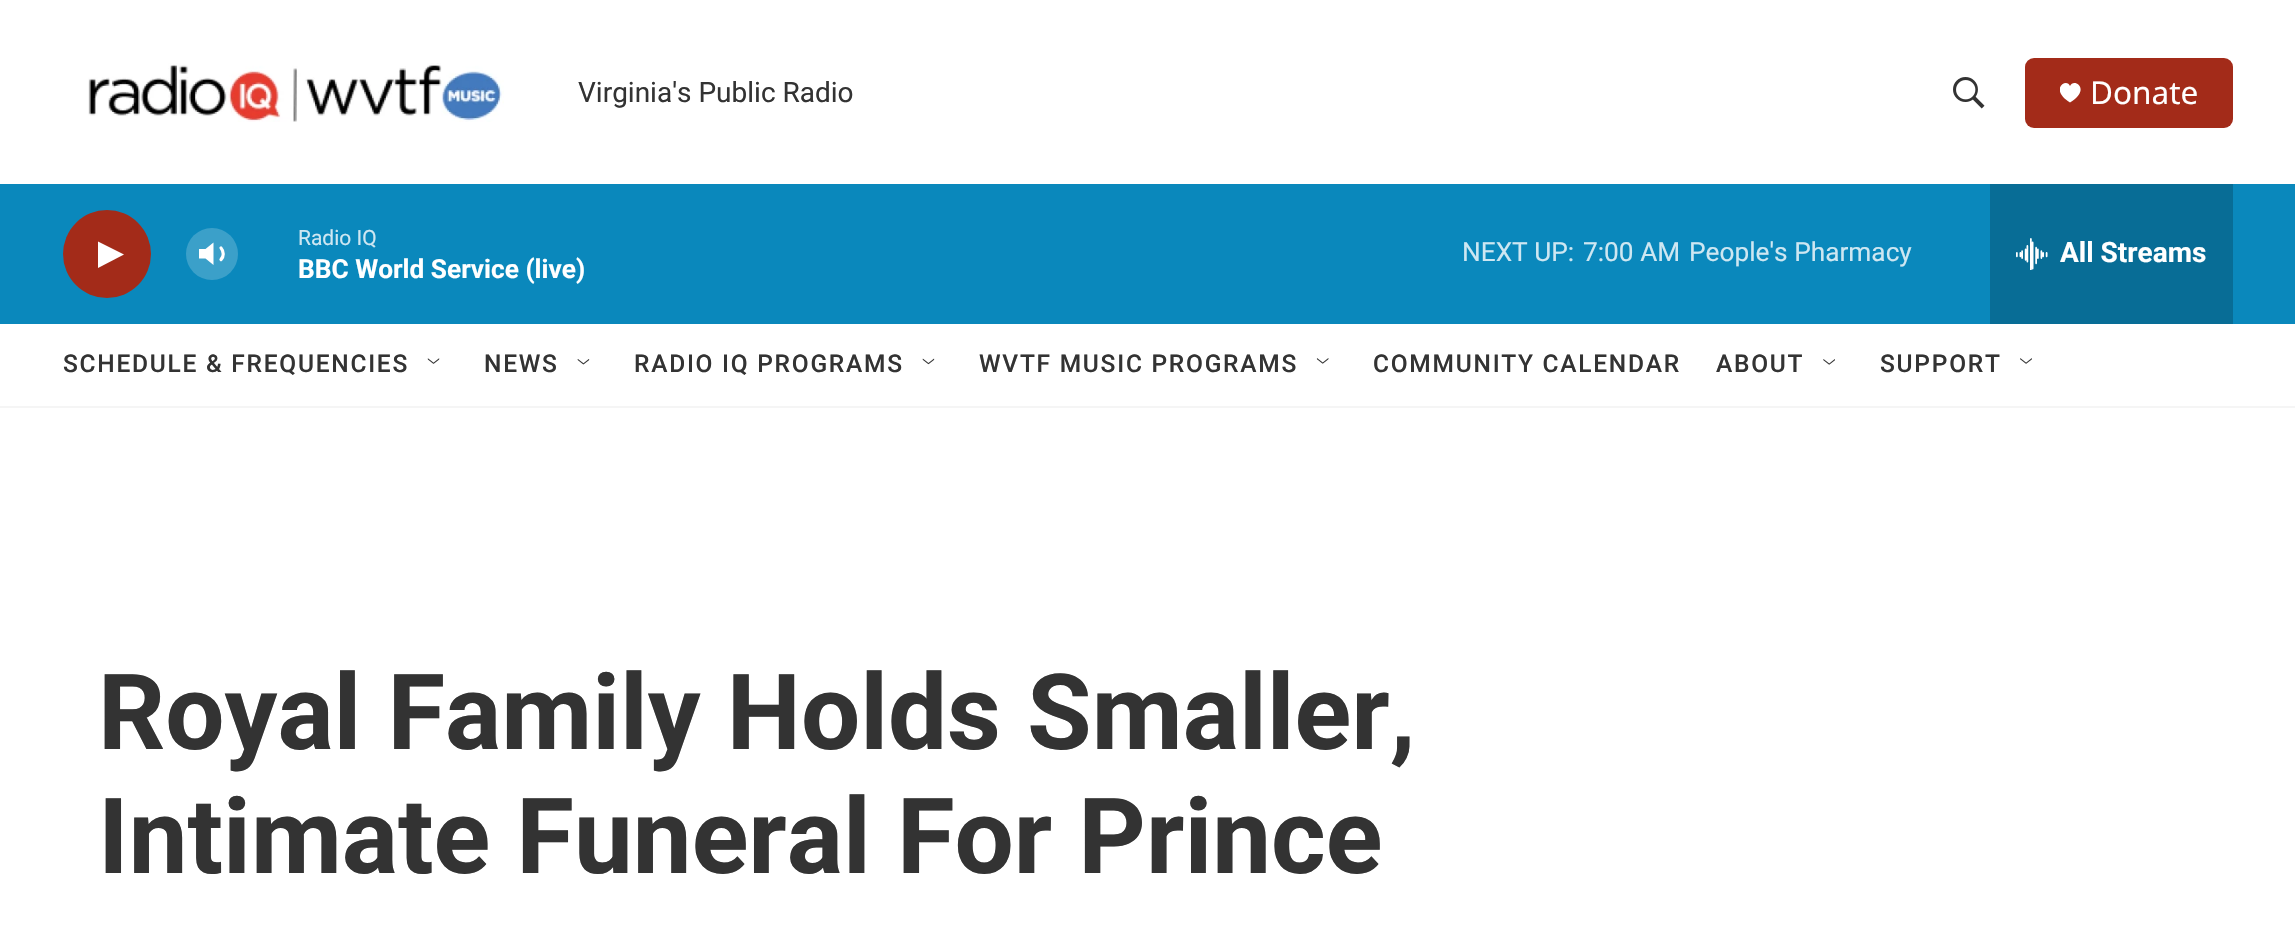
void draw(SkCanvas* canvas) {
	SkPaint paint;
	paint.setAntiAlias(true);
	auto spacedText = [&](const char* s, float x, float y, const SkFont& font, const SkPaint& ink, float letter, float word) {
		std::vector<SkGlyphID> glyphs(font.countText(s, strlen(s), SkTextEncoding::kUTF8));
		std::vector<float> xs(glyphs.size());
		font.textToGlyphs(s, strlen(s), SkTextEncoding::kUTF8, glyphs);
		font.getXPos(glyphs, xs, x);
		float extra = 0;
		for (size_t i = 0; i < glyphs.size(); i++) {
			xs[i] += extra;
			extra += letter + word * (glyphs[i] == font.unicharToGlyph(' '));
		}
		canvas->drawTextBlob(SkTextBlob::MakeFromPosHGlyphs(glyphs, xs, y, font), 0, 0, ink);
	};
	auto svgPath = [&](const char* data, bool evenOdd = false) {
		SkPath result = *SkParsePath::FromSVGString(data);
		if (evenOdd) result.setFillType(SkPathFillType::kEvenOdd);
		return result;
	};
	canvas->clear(0xffffffff);
	paint.setColor(0xfff5f5f5);
	canvas->drawRect(SkRect::MakeXYWH(0, 406, 2295, 2), paint);
	canvas->drawImageRect(SkImages::DeferredFromEncodedData(SkData::MakeFromFileName("img1.png")), SkRect::MakeXYWH(88, 63, 416, 59), SkSamplingOptions());
	SkFont f1(fontMgr->matchFamilyStyle("Roboto", SkFontStyle::Normal()), 28);
	f1.setSubpixel(true);
	paint.setColor(0xff333333);
	canvas->drawString("Virginia's Public Radio", 578, 102, f1, paint);
	canvas->drawImageRect(SkImages::DeferredFromEncodedData(SkData::MakeFromFileName("img2.png")), SkRect::MakeXYWH(1953, 77, 32, 32), SkSamplingOptions());
	paint.setColor(0xffa32b19);
	canvas->drawRoundRect(SkRect::MakeXYWH(2025, 58, 208, 70), 9, 9, paint);
	canvas->save();
	canvas->clipRect(SkRect::MakeXYWH(2060, 82, 21, 21));
	paint.setColor(0xffffffff);
	canvas->drawPath(svgPath("M2070 86C2067 77 2048.5 89 2070 102.5C2092 89 2073.5 77 2070 86Z"), paint);
	canvas->restore();
	SkFont f2(fontMgr->matchFamilyStyle("Noto Sans", SkFontStyle::Normal()), 31.5);
	f2.setSubpixel(true);
	canvas->drawString("Donate", 2090, 104, f2, paint);
	paint.setColor(0xff0a88bc);
	canvas->drawRect(SkRect::MakeXYWH(0, 184, 2295, 140), paint);
	paint.setColor(0xffa32b19);
	canvas->drawCircle(107, 254, 44, paint);
	paint.setColor(0xffffffff);
	canvas->drawPath(svgPath("M98 241.5L124 254.5L98 268Z"), paint);
	canvas->drawPath(svgPath("M213.5 242.5L205.5 249H199V258.5H205.5L213.5 265Z"), paint);
	paint.setStroke(true);
	paint.setStrokeWidth(3.2);
	paint.setStrokeCap(SkPaint::kRound_Cap);
	paint.setStrokeJoin(SkPaint::kRound_Join);
	canvas->drawPath(svgPath("M221 248C224 251.5 224 256.5 221 259.5"), paint);
	paint.setStroke(false);
	paint.setColor(0x33ffffff);
	canvas->drawCircle(212, 254, 26, paint);
	SkFont f3(fontMgr->matchFamilyStyle("Roboto", SkFontStyle::Normal()), 21);
	f3.setSubpixel(true);
	paint.setColor(0xffcee7f2);
	canvas->drawString("Radio IQ", 298, 245, f3, paint);
	SkFont f4(fontMgr->matchFamilyStyle("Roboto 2", SkFontStyle::Bold()), 26.25);
	f4.setSubpixel(true);
	paint.setColor(0xffffffff);
	canvas->drawString("BBC World Service (live)", 298, 278, f4, paint);
	SkFont f5(fontMgr->matchFamilyStyle("Roboto", SkFontStyle::Normal()), 26.25);
	f5.setSubpixel(true);
	paint.setColor(0xffcee7f2);
	canvas->drawString("NEXT UP:", 1462, 261, f5, paint);
	canvas->drawString("7:00 AM", 1583, 261, f5, paint);
	canvas->drawString("People's Pharmacy", 1689, 261, f5, paint);
	paint.setColor(0xff086d96);
	canvas->drawRect(SkRect::MakeXYWH(1990, 184, 243, 140), paint);
	canvas->drawImageRect(SkImages::DeferredFromEncodedData(SkData::MakeFromFileName("img3.png")), SkRect::MakeXYWH(2016, 238, 32, 32), SkSamplingOptions());
	SkFont f6(fontMgr->matchFamilyStyle("Roboto 2", SkFontStyle::Bold()), 28);
	f6.setSubpixel(true);
	paint.setColor(0xffffffff);
	canvas->drawString("All Streams", 2060, 262, f6, paint);
	SkFont f7(fontMgr->matchFamilyStyle("Roboto", SkFontStyle(500, SkFontStyle::kNormal_Width, SkFontStyle::kUpright_Slant)), 24.5);
	f7.setSubpixel(true);
	paint.setColor(0xff333333);
	spacedText("SCHEDULE & FREQUENCIES", 63, 372, f7, paint, 1.75, 0);
	canvas->drawImageRect(SkImages::DeferredFromEncodedData(SkData::MakeFromFileName("img4.png")), SkRect::MakeXYWH(427, 358, 13, 6), SkSamplingOptions());
	spacedText("NEWS", 484, 372, f7, paint, 1.75, 0);
	canvas->drawImageRect(SkImages::DeferredFromEncodedData(SkData::MakeFromFileName("img5.png")), SkRect::MakeXYWH(577, 359, 13, 6), SkSamplingOptions());
	spacedText("RADIO IQ PROGRAMS", 634, 372, f7, paint, 1.75, 0);
	canvas->drawImageRect(SkImages::DeferredFromEncodedData(SkData::MakeFromFileName("img6.png")), SkRect::MakeXYWH(922, 358, 13, 7), SkSamplingOptions());
	spacedText("WVTF MUSIC PROGRAMS", 979, 372, f7, paint, 1.75, 0);
	canvas->drawImageRect(SkImages::DeferredFromEncodedData(SkData::MakeFromFileName("img7.png")), SkRect::MakeXYWH(1316, 358, 13, 6), SkSamplingOptions());
	spacedText("COMMUNITY CALENDAR", 1373, 372, f7, paint, 1.75, 0);
	spacedText("ABOUT", 1716, 372, f7, paint, 1.75, 0);
	canvas->drawImageRect(SkImages::DeferredFromEncodedData(SkData::MakeFromFileName("img8.png")), SkRect::MakeXYWH(1823, 359, 12, 6), SkSamplingOptions());
	spacedText("SUPPORT", 1880, 372, f7, paint, 1.75, 0);
	canvas->drawImageRect(SkImages::DeferredFromEncodedData(SkData::MakeFromFileName("img9.png")), SkRect::MakeXYWH(2020, 358, 12, 6), SkSamplingOptions());
	SkFont f8(fontMgr->matchFamilyStyle("Roboto", SkFontStyle::Bold()), 105);
	f8.setSubpixel(true);
	canvas->drawString("Royal Family Holds Smaller,", 98, 749, f8, paint);
	canvas->drawString("Intimate Funeral For Prince", 98, 873, f8, paint);
}
